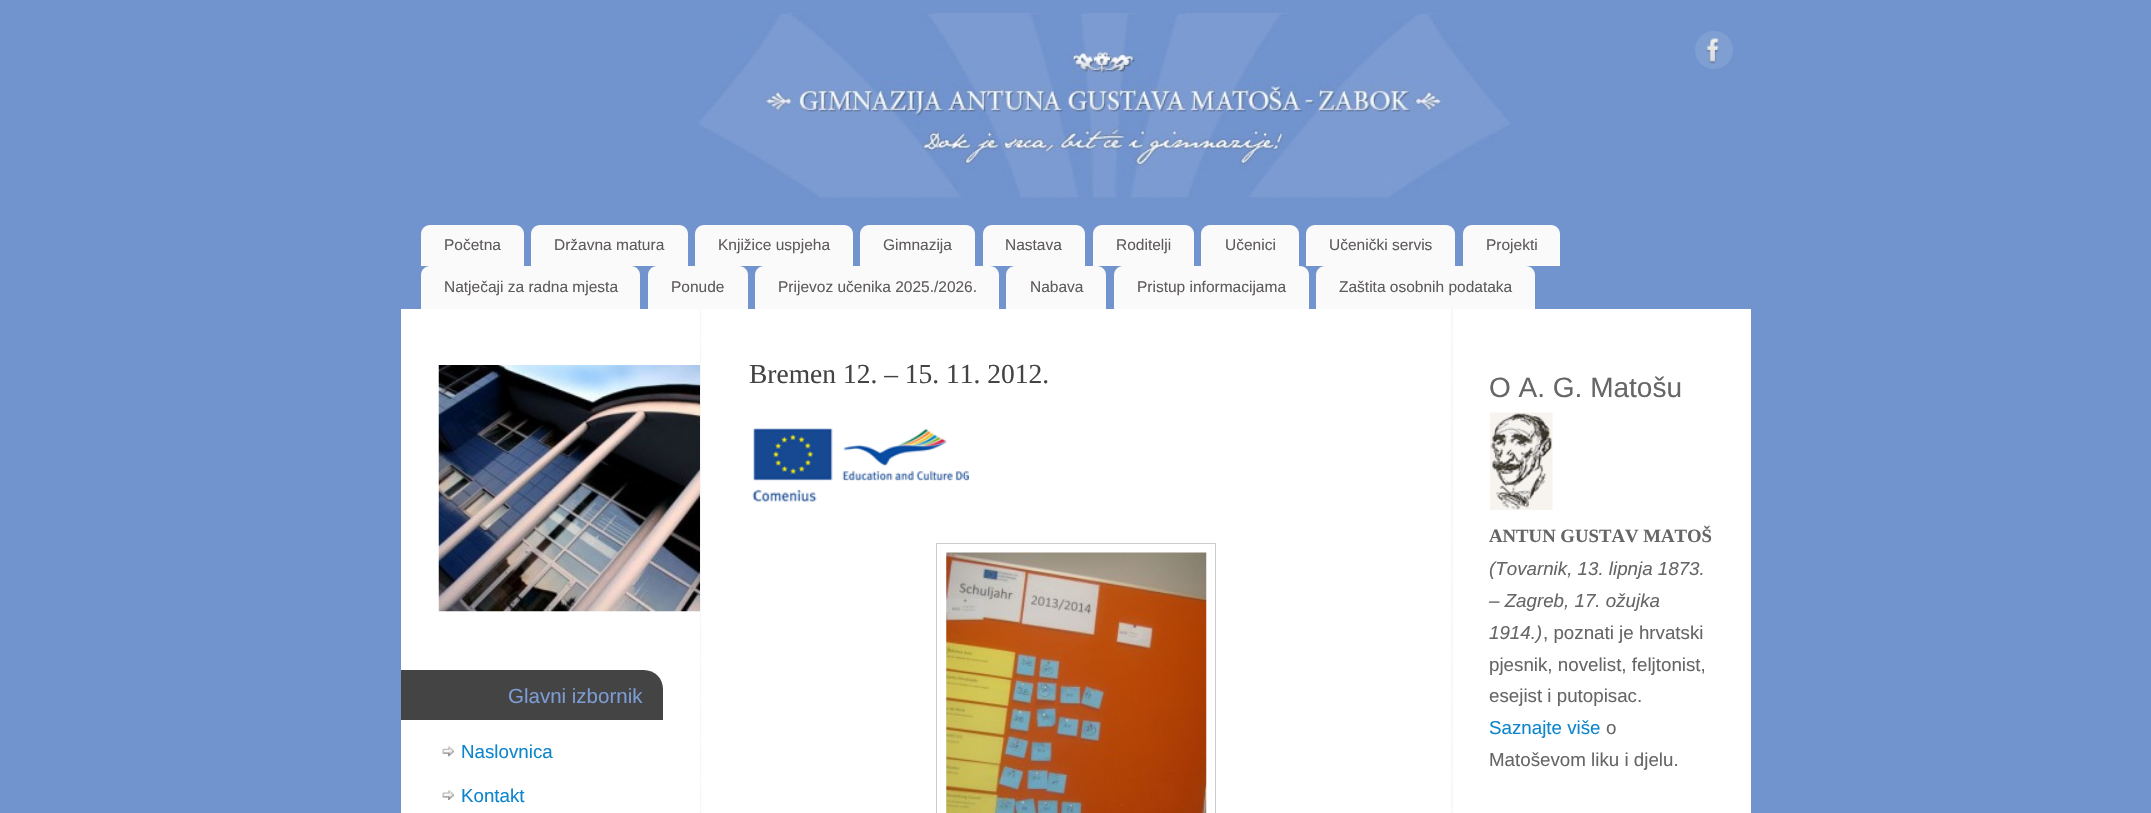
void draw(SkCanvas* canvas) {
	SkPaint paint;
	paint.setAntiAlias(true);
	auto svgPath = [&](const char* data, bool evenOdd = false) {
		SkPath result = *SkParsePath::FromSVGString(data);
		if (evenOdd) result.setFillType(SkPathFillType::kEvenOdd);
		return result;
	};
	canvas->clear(0xff7194ce);
	canvas->drawImageRect(SkImages::DeferredFromEncodedData(SkData::MakeFromFileName("img1.png")), SkRect::MakeXYWH(699, 13, 811, 186), SkSamplingOptions());
	paint.setColor(0xff7f9fd3);
	canvas->drawCircle(1714, 50, 19, paint);
	canvas->drawImageRect(SkImages::DeferredFromEncodedData(SkData::MakeFromFileName("img2.png")), SkRect::MakeXYWH(1706, 38, 14, 26), SkSamplingOptions());
	paint.setColor(0xfffafafa);
	canvas->drawPath(svgPath("M430 225H515C520 225 524 229 524 234V266H421V234C421 229 425 225 430 225Z"), paint);
	SkFont f1(fontMgr->matchFamilyStyle("Liberation Sans", SkFontStyle::Normal()), 15.5);
	f1.setSubpixel(true);
	paint.setColor(0xff5f5b5b);
	canvas->drawString("Početna", 444, 250, f1, paint);
	paint.setColor(0xfffafafa);
	canvas->drawPath(svgPath("M540 225H679C684 225 688 229 688 234V266H531V234C531 229 535 225 540 225Z"), paint);
	paint.setColor(0xff5f5b5b);
	canvas->drawString("Državna matura", 554, 250, f1, paint);
	paint.setColor(0xfffafafa);
	canvas->drawPath(svgPath("M704 225H844C849 225 853 229 853 234V266H695V234C695 229 699 225 704 225Z"), paint);
	paint.setColor(0xff5f5b5b);
	canvas->drawString("Knjižice uspjeha", 718, 250, f1, paint);
	paint.setColor(0xfffafafa);
	canvas->drawPath(svgPath("M869 225H966C971 225 975 229 975 234V266H860V234C860 229 864 225 869 225Z"), paint);
	paint.setColor(0xff5f5b5b);
	canvas->drawString("Gimnazija", 883, 250, f1, paint);
	paint.setColor(0xfffafafa);
	canvas->drawPath(svgPath("M992 225H1076C1081 225 1085 229 1085 234V266H983V234C983 229 987 225 992 225Z"), paint);
	paint.setColor(0xff5f5b5b);
	canvas->drawString("Nastava", 1005, 250, f1, paint);
	paint.setColor(0xfffafafa);
	canvas->drawPath(svgPath("M1102 225H1185C1190 225 1194 229 1194 234V266H1093V234C1093 229 1097 225 1102 225Z"), paint);
	paint.setColor(0xff5f5b5b);
	canvas->drawString("Roditelji", 1116, 250, f1, paint);
	paint.setColor(0xfffafafa);
	canvas->drawPath(svgPath("M1210 225H1290C1295 225 1299 229 1299 234V266H1201V234C1201 229 1205 225 1210 225Z"), paint);
	paint.setColor(0xff5f5b5b);
	canvas->drawString("Učenici", 1225, 250, f1, paint);
	paint.setColor(0xfffafafa);
	canvas->drawPath(svgPath("M1315 225H1446C1451 225 1455 229 1455 234V266H1306V234C1306 229 1310 225 1315 225Z"), paint);
	paint.setColor(0xff5f5b5b);
	canvas->drawString("Učenički servis", 1329, 250, f1, paint);
	paint.setColor(0xfffafafa);
	canvas->drawPath(svgPath("M1472 225H1551C1556 225 1560 229 1560 234V266H1463V234C1463 229 1467 225 1472 225Z"), paint);
	paint.setColor(0xff5f5b5b);
	canvas->drawString("Projekti", 1486, 250, f1, paint);
	paint.setColor(0xfffafafa);
	canvas->drawPath(svgPath("M430 266H631C636 266 640 270 640 275V309H421V275C421 270 425 266 430 266Z"), paint);
	paint.setColor(0xff5f5b5b);
	canvas->drawString("Natječaji za radna mjesta", 444, 292, f1, paint);
	paint.setColor(0xfffafafa);
	canvas->drawPath(svgPath("M657 266H739C744 266 748 270 748 275V309H648V275C648 270 652 266 657 266Z"), paint);
	paint.setColor(0xff5f5b5b);
	canvas->drawString("Ponude", 671, 292, f1, paint);
	paint.setColor(0xfffafafa);
	canvas->drawPath(svgPath("M764 266H990C995 266 999 270 999 275V309H755V275C755 270 759 266 764 266Z"), paint);
	paint.setColor(0xff5f5b5b);
	canvas->drawString("Prijevoz učenika 2025./2026.", 778, 292, f1, paint);
	paint.setColor(0xfffafafa);
	canvas->drawPath(svgPath("M1015 266H1097C1102 266 1106 270 1106 275V309H1006V275C1006 270 1010 266 1015 266Z"), paint);
	paint.setColor(0xff5f5b5b);
	canvas->drawString("Nabava", 1030, 292, f1, paint);
	paint.setColor(0xfffafafa);
	canvas->drawPath(svgPath("M1123 266H1300C1305 266 1309 270 1309 275V309H1114V275C1114 270 1118 266 1123 266Z"), paint);
	paint.setColor(0xff5f5b5b);
	canvas->drawString("Pristup informacijama", 1137, 292, f1, paint);
	paint.setColor(0xfffafafa);
	canvas->drawPath(svgPath("M1325 266H1526C1531 266 1535 270 1535 275V309H1316V275C1316 270 1320 266 1325 266Z"), paint);
	paint.setColor(0xff5f5b5b);
	canvas->drawString("Zaštita osobnih podataka", 1339, 292, f1, paint);
	paint.setColor(0xffffffff);
	canvas->drawRect(SkRect::MakeXYWH(401, 309, 1350, 504), paint);
	SkFont f2(fontMgr->matchFamilyStyle("Liberation Serif", SkFontStyle::Normal()), 27.5);
	f2.setSubpixel(true);
	paint.setColor(0xff444444);
	canvas->drawString("Bremen 12. – 15. 11. 2012.", 749, 383, f2, paint);
	canvas->drawImageRect(SkImages::DeferredFromEncodedData(SkData::MakeFromFileName("img3.png")), SkRect::MakeXYWH(752, 428, 217, 74), SkSamplingOptions());
	paint.setStroke(true);
	paint.setStrokeWidth(1);
	paint.setColor(0xffcccccc);
	canvas->drawRect(SkRect::MakeXYWH(936.5, 543.5, 279, 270), paint);
	canvas->drawImageRect(SkImages::DeferredFromEncodedData(SkData::MakeFromFileName("img4.png")), SkRect::MakeXYWH(946, 552, 261, 261), SkSamplingOptions());
	paint.setStrokeWidth(1.2);
	paint.setColor(0xffeeeeee);
	paint.setPathEffect(SkDashPathEffect::Make({{1.25f, 1.25f}}, 0));
	canvas->drawPath(svgPath("M700.5 309V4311"), paint);
	paint.setPathEffect(nullptr);
	canvas->drawImageRect(SkImages::DeferredFromEncodedData(SkData::MakeFromFileName("img5.png")), SkRect::MakeXYWH(438, 365, 262, 247), SkSamplingOptions());
	paint.setStroke(false);
	paint.setColor(0xff444444);
	canvas->drawPath(svgPath("M401 670H644C654.5 670 663 678.5 663 689V720H401Z"), paint);
	SkFont f3(fontMgr->matchFamilyStyle("Liberation Sans", SkFontStyle::Normal()), 20.5);
	f3.setSubpixel(true);
	paint.setColor(0xff7c9bd2);
	canvas->drawString("Glavni izbornik", 508, 703, f3, paint);
	canvas->drawImageRect(SkImages::DeferredFromEncodedData(SkData::MakeFromFileName("img6.png")), SkRect::MakeXYWH(442, 746, 12, 11), SkSamplingOptions());
	SkFont f4(fontMgr->matchFamilyStyle("Liberation Sans", SkFontStyle::Normal()), 18.75);
	f4.setSubpixel(true);
	paint.setColor(0xff0d85cc);
	canvas->drawString("Naslovnica", 461, 758, f4, paint);
	canvas->drawImageRect(SkImages::DeferredFromEncodedData(SkData::MakeFromFileName("img7.png")), SkRect::MakeXYWH(442, 790, 12, 10), SkSamplingOptions());
	canvas->drawString("Kontakt", 461, 802, f4, paint);
	paint.setStroke(true);
	paint.setColor(0xffeaeaea);
	paint.setPathEffect(SkDashPathEffect::Make({{1.25f, 1.25f}}, 0));
	canvas->drawPath(svgPath("M1452 309V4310"), paint);
	paint.setPathEffect(nullptr);
	SkFont f5(fontMgr->matchFamilyStyle("Liberation Sans", SkFontStyle::Normal()), 28);
	f5.setSubpixel(true);
	paint.setStroke(false);
	paint.setColor(0xff666666);
	canvas->drawString("O A. G. Matošu", 1489, 397, f5, paint);
	canvas->drawImageRect(SkImages::DeferredFromEncodedData(SkData::MakeFromFileName("img8.png")), SkRect::MakeXYWH(1490, 412, 63, 98), SkSamplingOptions());
	SkFont f6(fontMgr->matchFamilyStyle("Liberation Serif", SkFontStyle::Bold()), 18.75);
	f6.setSubpixel(true);
	canvas->drawString("ANTUN GUSTAV MATOŠ", 1489, 542, f6, paint);
	SkFont f7(fontMgr->matchFamilyStyle("Liberation Sans", SkFontStyle::Italic()), 18.75);
	f7.setSubpixel(true);
	canvas->drawString("(Tovarnik, 13. lipnja 1873.", 1489, 575, f7, paint);
	canvas->drawString("– Zagreb, 17. ožujka", 1489, 607, f7, paint);
	canvas->drawString("1914.)", 1489, 639, f7, paint);
	canvas->drawString(", poznati je hrvatski", 1543, 639, f4, paint);
	canvas->drawString("pjesnik, novelist, feljtonist,", 1489, 671, f4, paint);
	canvas->drawString("esejist i putopisac.", 1489, 702, f4, paint);
	paint.setColor(0xff0d85cc);
	canvas->drawString("Saznajte više", 1489, 734, f4, paint);
	paint.setColor(0xff666666);
	canvas->drawString("o", 1606, 734, f4, paint);
	canvas->drawString("Matoševom liku i djelu.", 1489, 766, f4, paint);
}
